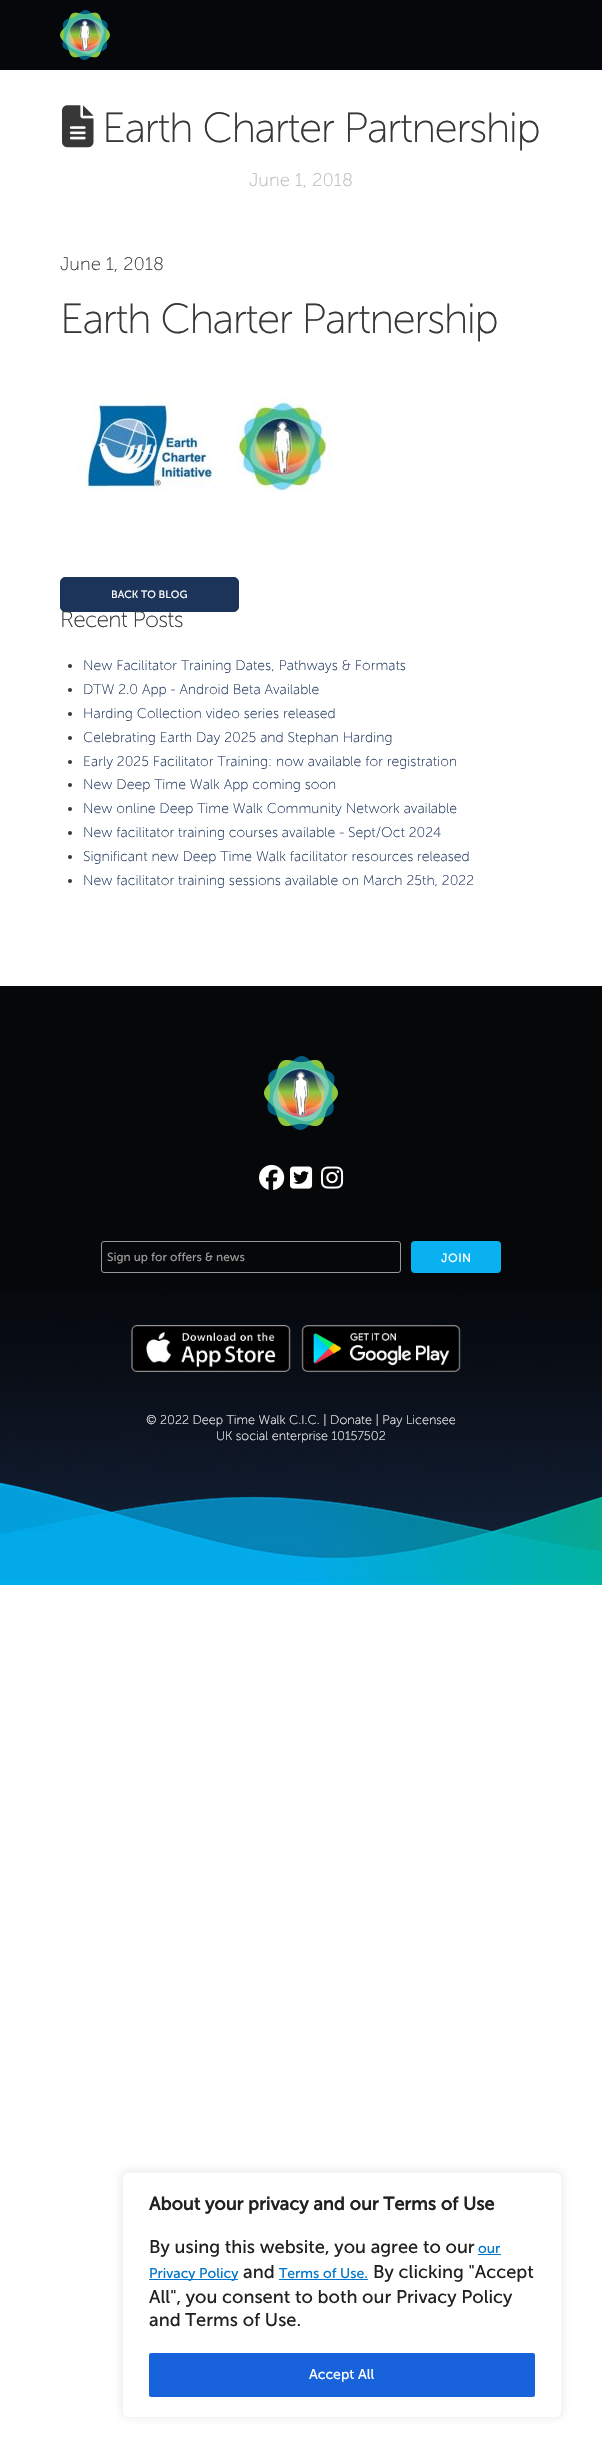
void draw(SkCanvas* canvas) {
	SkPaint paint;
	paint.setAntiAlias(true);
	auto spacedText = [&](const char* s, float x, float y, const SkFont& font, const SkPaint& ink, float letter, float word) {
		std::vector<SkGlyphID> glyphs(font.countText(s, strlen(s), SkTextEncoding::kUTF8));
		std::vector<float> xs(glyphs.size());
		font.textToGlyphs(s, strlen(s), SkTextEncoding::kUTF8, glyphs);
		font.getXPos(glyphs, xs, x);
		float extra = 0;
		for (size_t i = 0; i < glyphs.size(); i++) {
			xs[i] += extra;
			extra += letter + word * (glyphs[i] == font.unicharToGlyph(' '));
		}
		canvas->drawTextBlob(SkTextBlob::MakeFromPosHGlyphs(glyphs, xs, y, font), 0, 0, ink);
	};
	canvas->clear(0xffffffff);
	paint.setColor(0xff06070b);
	canvas->drawRect(SkRect::MakeXYWH(0, 0, 602, 70), paint);
	canvas->drawImageRect(SkImages::DeferredFromEncodedData(SkData::MakeFromFileName("img1.png")), SkRect::MakeXYWH(60, 10, 50, 50), SkSamplingOptions());
	canvas->drawImageRect(SkImages::DeferredFromEncodedData(SkData::MakeFromFileName("img2.png")), SkRect::MakeXYWH(62, 105, 32, 43), SkSamplingOptions());
	SkFont f1(fontMgr->matchFamilyStyle("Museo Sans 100", SkFontStyle(300, SkFontStyle::kNormal_Width, SkFontStyle::kUpright_Slant)), 42);
	f1.setSubpixel(true);
	paint.setColor(0xff373737);
	spacedText("Earth Charter Partnership", 102, 142, f1, paint, -1.5, 0);
	SkFont f2(fontMgr->matchFamilyStyle("Museo Sans 100", SkFontStyle(300, SkFontStyle::kNormal_Width, SkFontStyle::kUpright_Slant)), 18.25);
	f2.setSubpixel(true);
	paint.setColor(0xffb9b9b9);
	canvas->drawString("June 1, 2018", 249, 186, f2, paint);
	paint.setColor(0xff373737);
	canvas->drawString("June 1, 2018", 60, 270, f2, paint);
	spacedText("Earth Charter Partnership", 60, 333, f1, paint, -1.5, 0);
	canvas->drawImageRect(SkImages::DeferredFromEncodedData(SkData::MakeFromFileName("img3.png")), SkRect::MakeXYWH(76, 395, 256, 97), SkSamplingOptions());
	paint.setColor(0xff1d345a);
	canvas->drawRoundRect(SkRect::MakeXYWH(60.5, 577.5, 178, 34), 4.5, 4.5, paint);
	paint.setStroke(true);
	paint.setStrokeWidth(1);
	canvas->drawRoundRect(SkRect::MakeXYWH(60.5, 577.5, 178, 34), 4.5, 4.5, paint);
	SkFont f3(fontMgr->matchFamilyStyle("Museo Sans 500", SkFontStyle::Normal()), 10.5);
	f3.setSubpixel(true);
	paint.setStroke(false);
	paint.setColor(0xffffffff);
	canvas->drawString("BACK TO BLOG", 111, 598, f3, paint);
	SkFont f4(fontMgr->matchFamilyStyle("Museo Sans 100", SkFontStyle(300, SkFontStyle::kNormal_Width, SkFontStyle::kUpright_Slant)), 22.5);
	f4.setSubpixel(true);
	paint.setColor(0xff373737);
	spacedText("Recent Posts", 60, 627, f4, paint, -0.75, 0);
	canvas->drawCircle(70, 666, 2, paint);
	SkFont f5(fontMgr->matchFamilyStyle("Museo Sans 100", SkFontStyle(300, SkFontStyle::kNormal_Width, SkFontStyle::kUpright_Slant)), 14);
	f5.setSubpixel(true);
	paint.setColor(0xff1d345a);
	canvas->drawString("New Facilitator Training Dates, Pathways & Formats", 83, 670, f5, paint);
	paint.setColor(0xff373737);
	canvas->drawCircle(70, 690, 2, paint);
	paint.setColor(0xff1d345a);
	canvas->drawString("DTW 2.0 App - Android Beta Available", 83, 694, f5, paint);
	paint.setColor(0xff373737);
	canvas->drawCircle(70, 714, 2, paint);
	paint.setColor(0xff1d345a);
	canvas->drawString("Harding Collection video series released", 83, 718, f5, paint);
	paint.setColor(0xff373737);
	canvas->drawCircle(70, 738, 2, paint);
	paint.setColor(0xff1d345a);
	canvas->drawString("Celebrating Earth Day 2025 and Stephan Harding", 83, 742, f5, paint);
	paint.setColor(0xff373737);
	canvas->drawCircle(70, 762, 2, paint);
	paint.setColor(0xff1d345a);
	canvas->drawString("Early 2025 Facilitator Training: now available for registration", 83, 766, f5, paint);
	paint.setColor(0xff373737);
	canvas->drawCircle(70, 785, 2, paint);
	paint.setColor(0xff1d345a);
	canvas->drawString("New Deep Time Walk App coming soon", 83, 789, f5, paint);
	paint.setColor(0xff373737);
	canvas->drawCircle(70, 809, 2, paint);
	paint.setColor(0xff1d345a);
	canvas->drawString("New online Deep Time Walk Community Network available", 83, 813, f5, paint);
	paint.setColor(0xff373737);
	canvas->drawCircle(70, 833, 2, paint);
	paint.setColor(0xff1d345a);
	canvas->drawString("New facilitator training courses available - Sept/Oct 2024", 83, 837, f5, paint);
	paint.setColor(0xff373737);
	canvas->drawCircle(70, 857, 2, paint);
	paint.setColor(0xff1d345a);
	canvas->drawString("Significant new Deep Time Walk facilitator resources released", 83, 861, f5, paint);
	paint.setColor(0xff373737);
	canvas->drawCircle(70, 881, 2, paint);
	paint.setColor(0xff1d345a);
	canvas->drawString("New facilitator training sessions available on March 25th, 2022", 83, 885, f5, paint);
	paint.setColor(0xff060709);
	canvas->drawRect(SkRect::MakeXYWH(0, 986, 602, 303), paint);
	canvas->drawImageRect(SkImages::DeferredFromEncodedData(SkData::MakeFromFileName("img4.png")), SkRect::MakeXYWH(0, 1289, 602, 296), SkSamplingOptions());
	canvas->drawImageRect(SkImages::DeferredFromEncodedData(SkData::MakeFromFileName("img5.png")), SkRect::MakeXYWH(264, 1056, 74, 74), SkSamplingOptions());
	canvas->drawImageRect(SkImages::DeferredFromEncodedData(SkData::MakeFromFileName("img6.png")), SkRect::MakeXYWH(259, 1164, 26, 26), SkSamplingOptions());
	canvas->drawImageRect(SkImages::DeferredFromEncodedData(SkData::MakeFromFileName("img7.png")), SkRect::MakeXYWH(290, 1166, 23, 23), SkSamplingOptions());
	canvas->drawImageRect(SkImages::DeferredFromEncodedData(SkData::MakeFromFileName("img8.png")), SkRect::MakeXYWH(321, 1166, 23, 23), SkSamplingOptions());
	paint.setStroke(true);
	paint.setColor(0xff999999);
	canvas->drawRoundRect(SkRect::MakeXYWH(101.5, 1241.5, 299, 31), 2.5, 2.5, paint);
	SkFont f6(fontMgr->matchFamilyStyle("Museo Sans 500", SkFontStyle::Normal()), 11.9);
	f6.setSubpixel(true);
	paint.setStroke(false);
	canvas->drawString("Sign up for offers & news", 107, 1261, f6, paint);
	paint.setColor(0xff09b1f0);
	canvas->drawRoundRect(SkRect::MakeXYWH(411, 1241, 90, 32), 4, 4, paint);
	paint.setColor(0xffffffff);
	spacedText("JOIN", 441, 1262, f6, paint, 0.5, 0);
	canvas->drawImageRect(SkImages::DeferredFromEncodedData(SkData::MakeFromFileName("img9.png")), SkRect::MakeXYWH(131, 1325, 160, 47), SkSamplingOptions());
	canvas->drawImageRect(SkImages::DeferredFromEncodedData(SkData::MakeFromFileName("img10.png")), SkRect::MakeXYWH(301, 1325, 160, 47), SkSamplingOptions());
	SkFont f7(fontMgr->matchFamilyStyle("Museo Sans 100", SkFontStyle(300, SkFontStyle::kNormal_Width, SkFontStyle::kUpright_Slant)), 12.6);
	f7.setSubpixel(true);
	canvas->drawString("© 2022 Deep Time Walk C.I.C. | Donate | Pay Licensee", 146, 1424, f7, paint);
	canvas->drawString("UK social enterprise 10157502", 216, 1440, f7, paint);
	paint.setColor(0x4dacabab);
	paint.setMaskFilter(SkMaskFilter::MakeBlur(kNormal_SkBlurStyle, 5));
	canvas->drawRoundRect(SkRect::MakeXYWH(122, 2171, 440, 246), 6, 6, paint);
	paint.setMaskFilter(nullptr);
	paint.setColor(0xffffffff);
	canvas->drawRoundRect(SkRect::MakeXYWH(122.5, 2172.5, 439, 245), 5.5, 5.5, paint);
	paint.setStroke(true);
	paint.setColor(0xfff4f4f4);
	canvas->drawRoundRect(SkRect::MakeXYWH(122.5, 2172.5, 439, 245), 5.5, 5.5, paint);
	SkFont f8(fontMgr->matchFamilyStyle("Museo Sans 500", SkFontStyle::Bold()), 18.25);
	f8.setSubpixel(true);
	paint.setStroke(false);
	paint.setColor(0xff212121);
	canvas->drawString("About your privacy and our Terms of Use", 149, 2210, f8, paint);
	SkFont f9(fontMgr->matchFamilyStyle("Museo Sans 500", SkFontStyle::Normal()), 18.25);
	f9.setSubpixel(true);
	canvas->drawString("By using this website, you agree to our", 149, 2253, f9, paint);
	SkFont f10(fontMgr->matchFamilyStyle("Museo Sans 500", SkFontStyle::Normal()), 14);
	f10.setSubpixel(true);
	paint.setColor(0xff0077cc);
	canvas->drawString("our", 478, 2253, f10, paint);
	canvas->drawRect(SkRect::MakeXYWH(478, 2254, 23, 1), paint);
	canvas->drawRect(SkRect::MakeXYWH(149, 2279, 89, 1), paint);
	canvas->drawString("Privacy Policy", 149, 2278, f10, paint);
	paint.setColor(0xff212121);
	canvas->drawString("and", 243, 2278, f9, paint);
	paint.setColor(0xff0077cc);
	canvas->drawString("Terms of Use.", 279, 2278, f10, paint);
	canvas->drawRect(SkRect::MakeXYWH(279, 2279, 89, 1), paint);
	paint.setColor(0xff212121);
	canvas->drawString("By clicking \"Accept", 373, 2278, f9, paint);
	canvas->drawString("All\", you consent to both our Privacy Policy", 149, 2303, f9, paint);
	canvas->drawString("and Terms of Use.", 149, 2326, f9, paint);
	paint.setColor(0xff1863dc);
	canvas->drawRoundRect(SkRect::MakeXYWH(150, 2354, 384, 42), 1, 1, paint);
	paint.setStroke(true);
	paint.setStrokeWidth(2);
	canvas->drawRoundRect(SkRect::MakeXYWH(150, 2354, 384, 42), 1, 1, paint);
	paint.setStroke(false);
	paint.setColor(0xffffffff);
	canvas->drawString("Accept All", 309, 2379, f10, paint);
}
